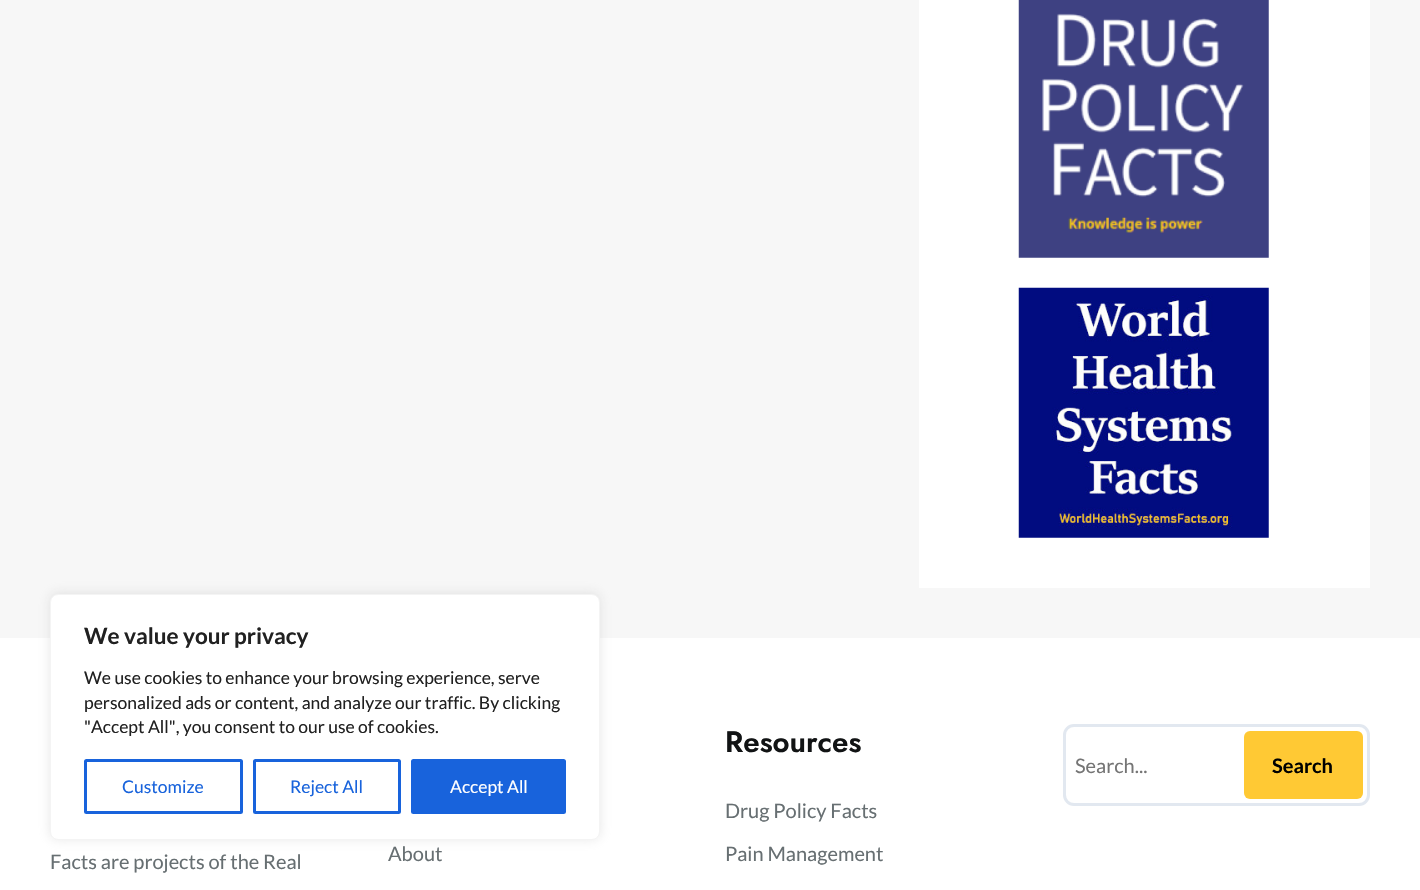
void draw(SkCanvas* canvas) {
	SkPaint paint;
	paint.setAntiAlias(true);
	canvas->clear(0xffffffff);
	paint.setColor(0xfff7f7f7);
	canvas->drawRect(SkRect::MakeXYWH(0, 0, 1420, 638), paint);
	paint.setColor(0x4dacabab);
	paint.setMaskFilter(SkMaskFilter::MakeBlur(kNormal_SkBlurStyle, 6));
	canvas->drawRoundRect(SkRect::MakeXYWH(50, 593, 550, 246), 8, 8, paint);
	paint.setMaskFilter(nullptr);
	paint.setColor(0xffffffff);
	canvas->drawRoundRect(SkRect::MakeXYWH(50.5, 594.5, 549, 245), 7.5, 7.5, paint);
	paint.setStroke(true);
	paint.setStrokeWidth(1);
	paint.setColor(0xfff4f4f4);
	canvas->drawRoundRect(SkRect::MakeXYWH(50.5, 594.5, 549, 245), 7.5, 7.5, paint);
	SkFont f1(fontMgr->matchFamilyStyle("Lato", SkFontStyle::Bold()), 22.5);
	f1.setSubpixel(true);
	paint.setStroke(false);
	paint.setColor(0xff212121);
	canvas->drawString("We value your privacy", 84, 644, f1, paint);
	SkFont f2(fontMgr->matchFamilyStyle("Lato", SkFontStyle::Normal()), 17.5);
	f2.setSubpixel(true);
	canvas->drawString("We use cookies to enhance your browsing experience, serve", 84, 684, f2, paint);
	canvas->drawString("personalized ads or content, and analyze our traffic. By clicking", 84, 709, f2, paint);
	canvas->drawString("\"Accept All\", you consent to our use of cookies.", 84, 733, f2, paint);
	paint.setStroke(true);
	paint.setStrokeWidth(3);
	paint.setColor(0xff1863dc);
	canvas->drawRoundRect(SkRect::MakeXYWH(85.5, 760.5, 156, 52), 1, 1, paint);
	paint.setStroke(false);
	canvas->drawString("Customize", 122, 793, f2, paint);
	paint.setStroke(true);
	canvas->drawRoundRect(SkRect::MakeXYWH(254.5, 760.5, 145, 52), 1, 1, paint);
	paint.setStroke(false);
	canvas->drawString("Reject All", 290, 793, f2, paint);
	canvas->drawRoundRect(SkRect::MakeXYWH(412.5, 760.5, 152, 52), 1, 1, paint);
	paint.setStroke(true);
	canvas->drawRoundRect(SkRect::MakeXYWH(412.5, 760.5, 152, 52), 1, 1, paint);
	paint.setStroke(false);
	paint.setColor(0xffffffff);
	canvas->drawString("Accept All", 450, 793, f2, paint);
	canvas->drawRect(SkRect::MakeXYWH(919, 0, 451, 588), paint);
	canvas->drawImageRect(SkImages::DeferredFromEncodedData(SkData::MakeFromFileName("img1.png")), SkRect::MakeXYWH(1018, 0, 251, 258), SkSamplingOptions());
	canvas->drawImageRect(SkImages::DeferredFromEncodedData(SkData::MakeFromFileName("img2.png")), SkRect::MakeXYWH(1018, 287, 251, 251), SkSamplingOptions());
	SkFont f3(fontMgr->matchFamilyStyle("Jost", SkFontStyle(600, SkFontStyle::kNormal_Width, SkFontStyle::kUpright_Slant)), 29.5);
	f3.setSubpixel(true);
	paint.setColor(0xff111314);
	canvas->drawString("Resources", 725, 752, f3, paint);
	SkFont f4(fontMgr->matchFamilyStyle("Lato", SkFontStyle::Normal()), 20);
	f4.setSubpixel(true);
	paint.setColor(0xff676f72);
	canvas->drawString("Drug Policy Facts", 725, 818, f4, paint);
	canvas->drawString("Pain Management", 725, 861, f4, paint);
	paint.setStroke(true);
	paint.setColor(0xffe2e8f0);
	canvas->drawRoundRect(SkRect::MakeXYWH(1064.5, 725.5, 304, 79), 9.5, 9.5, paint);
	paint.setStroke(false);
	paint.setColor(0xff757575);
	canvas->drawString("Search...", 1075, 773, f4, paint);
	paint.setColor(0xffffc934);
	canvas->drawRoundRect(SkRect::MakeXYWH(1244, 731, 119, 68), 6, 6, paint);
	SkFont f5(fontMgr->matchFamilyStyle("Lato", SkFontStyle::Bold()), 20);
	f5.setSubpixel(true);
	paint.setColor(0xff000000);
	canvas->drawString("Search", 1272, 773, f5, paint);
	paint.setColor(0xff676f72);
	canvas->drawString("Facts are projects of the Real", 50, 869, f4, paint);
	canvas->drawString("About", 388, 861, f4, paint);
}
